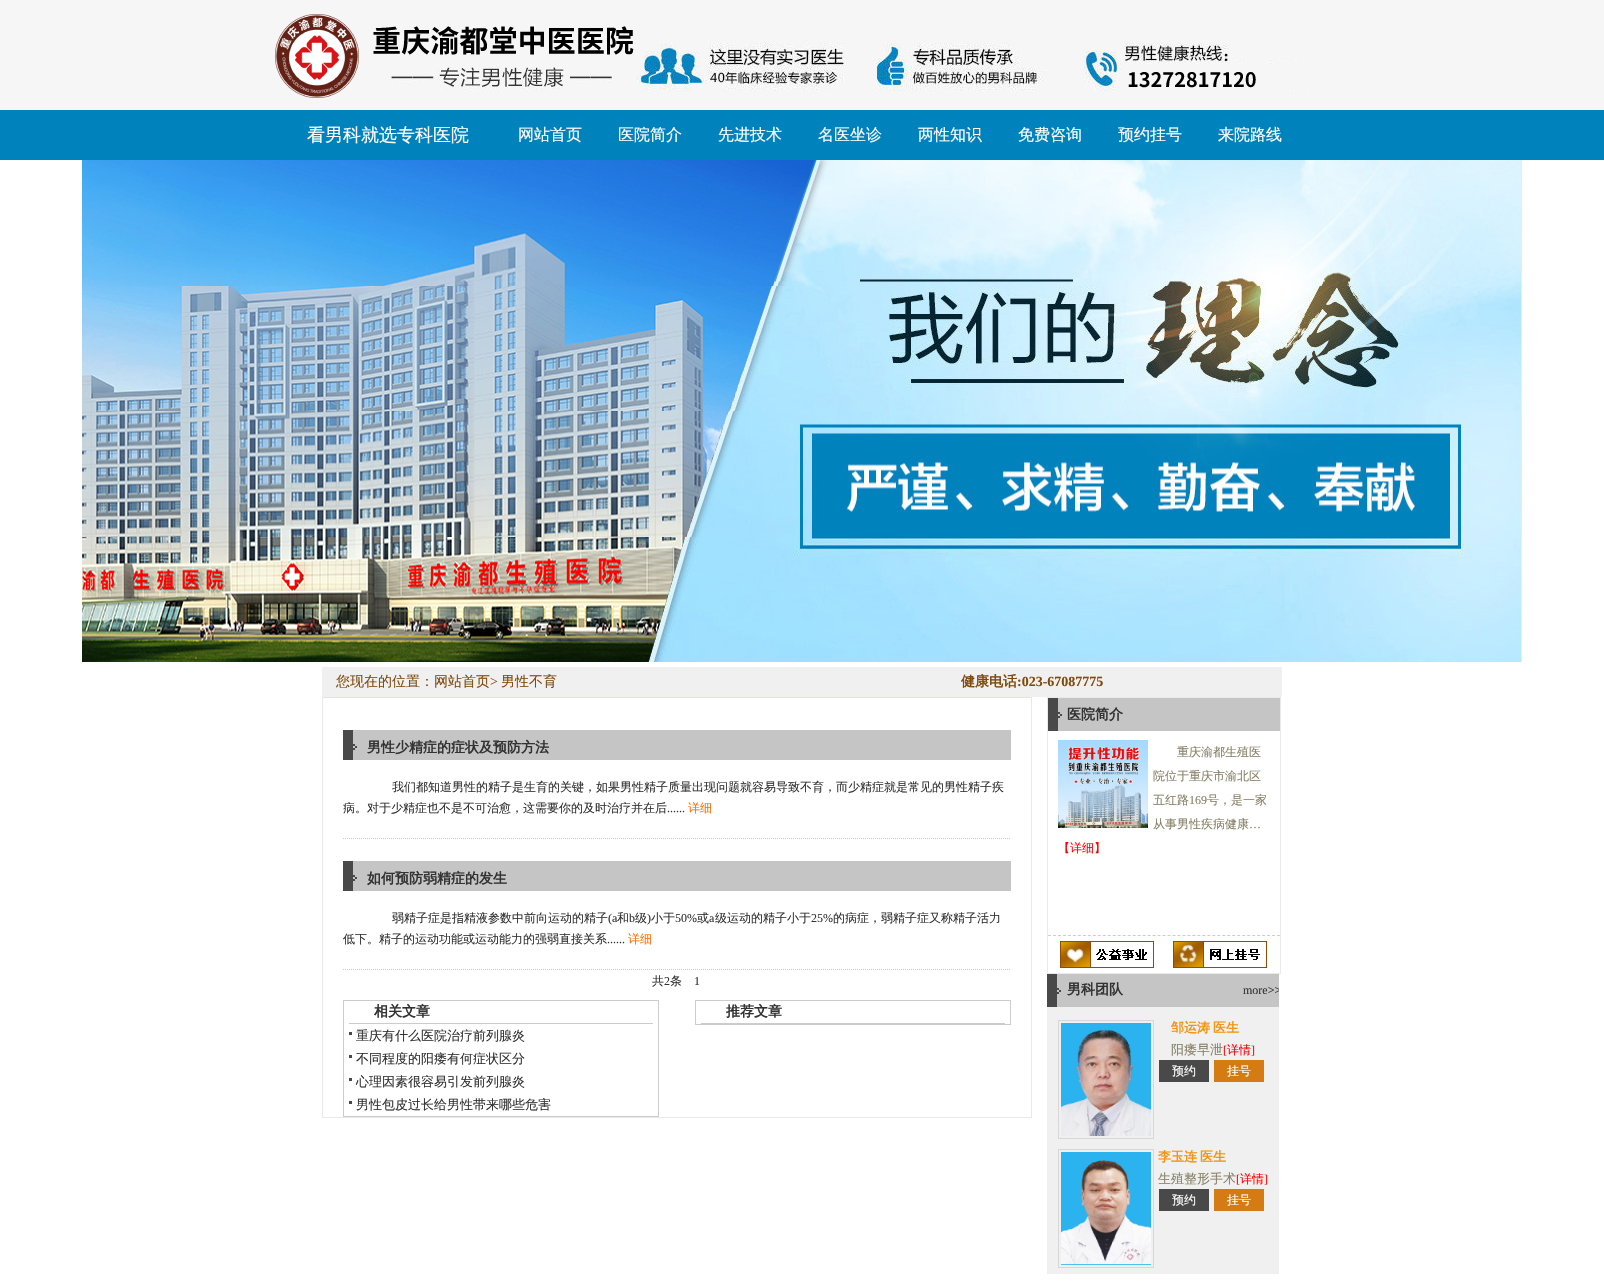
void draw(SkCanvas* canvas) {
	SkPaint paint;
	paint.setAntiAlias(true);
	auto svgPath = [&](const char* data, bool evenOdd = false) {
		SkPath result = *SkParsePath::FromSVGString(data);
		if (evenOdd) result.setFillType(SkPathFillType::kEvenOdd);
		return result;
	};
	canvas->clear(0xffffffff);
	paint.setColor(0xfff6f6f6);
	canvas->drawRect(SkRect::MakeXYWH(0, 0, 1604, 110), paint);
	canvas->drawImageRect(SkImages::DeferredFromEncodedData(SkData::MakeFromFileName("img1.png")), SkRect::MakeXYWH(275, 14, 1036, 84), SkSamplingOptions());
	paint.setColor(0xff0082bd);
	canvas->drawRect(SkRect::MakeXYWH(0, 110, 1604, 50), paint);
	SkFont f1(fontMgr->matchFamilyStyle("WenQuanYi Zen Hei", SkFontStyle(500, SkFontStyle::kNormal_Width, SkFontStyle::kUpright_Slant)), 18);
	f1.setSubpixel(true);
	paint.setColor(0xffffffff);
	canvas->drawString("看男科就选专科医院", 307, 141, f1, paint);
	SkFont f2(fontMgr->matchFamilyStyle("WenQuanYi Zen Hei", SkFontStyle(500, SkFontStyle::kNormal_Width, SkFontStyle::kUpright_Slant)), 16);
	f2.setSubpixel(true);
	canvas->drawString("网站首页", 518, 140, f2, paint);
	canvas->drawString("医院简介", 618, 140, f2, paint);
	canvas->drawString("先进技术", 718, 140, f2, paint);
	canvas->drawString("名医坐诊", 818, 140, f2, paint);
	canvas->drawString("两性知识", 918, 140, f2, paint);
	canvas->drawString("免费咨询", 1018, 140, f2, paint);
	canvas->drawString("预约挂号", 1118, 140, f2, paint);
	canvas->drawString("来院路线", 1218, 140, f2, paint);
	canvas->drawImageRect(SkImages::DeferredFromEncodedData(SkData::MakeFromFileName("img2.png")), SkRect::MakeXYWH(82, 160, 1440, 502), SkSamplingOptions());
	paint.setColor(0xfff0f0f0);
	canvas->drawRect(SkRect::MakeXYWH(322, 667, 960, 30), paint);
	SkFont f3(fontMgr->matchFamilyStyle("WenQuanYi Zen Hei", SkFontStyle(500, SkFontStyle::kNormal_Width, SkFontStyle::kUpright_Slant)), 14);
	f3.setSubpixel(true);
	paint.setColor(0xff7e4b0f);
	canvas->drawString("您现在的位置：网站首页", 336, 686, f3, paint);
	SkFont f4(fontMgr->matchFamilyStyle("Liberation Serif", SkFontStyle::Normal()), 14);
	f4.setSubpixel(true);
	canvas->drawString(">", 490, 686, f4, paint);
	canvas->drawString("男性不育", 501, 686, f3, paint);
	SkFont f5(fontMgr->matchFamilyStyle("WenQuanYi Zen Hei", SkFontStyle::Bold()), 14);
	f5.setSubpixel(true);
	canvas->drawString("健康电话", 961, 686, f5, paint);
	SkFont f6(fontMgr->matchFamilyStyle("Liberation Serif", SkFontStyle::Bold()), 14);
	f6.setSubpixel(true);
	canvas->drawString(":023-67087775", 1017, 686, f6, paint);
	paint.setColor(0xffe9e9e9);
	canvas->drawRect(SkRect::MakeXYWH(1031, 697, 1, 421), paint);
	canvas->drawRect(SkRect::MakeXYWH(322, 1117, 710, 1), paint);
	canvas->drawRect(SkRect::MakeXYWH(322, 697, 1, 421), paint);
	paint.setColor(0xffe0e8d8);
	canvas->drawRect(SkRect::MakeXYWH(323, 697, 708, 1), paint);
	paint.setStroke(true);
	paint.setStrokeWidth(1);
	paint.setColor(0xffcccccc);
	paint.setPathEffect(SkDashPathEffect::Make({{1, 1}}, 0));
	canvas->drawPath(svgPath("M343 838.5H1011"), paint);
	paint.setPathEffect(nullptr);
	paint.setStroke(false);
	paint.setColor(0xffc5c5c5);
	canvas->drawRect(SkRect::MakeXYWH(357, 730, 654, 30), paint);
	canvas->drawImageRect(SkImages::DeferredFromEncodedData(SkData::MakeFromFileName("img3.png")), SkRect::MakeXYWH(343, 730, 14, 30), SkSamplingOptions());
	paint.setColor(0xff333333);
	canvas->drawString("男性少精症的症状及预防方法", 367, 752, f5, paint);
	SkFont f7(fontMgr->matchFamilyStyle("WenQuanYi Zen Hei", SkFontStyle(500, SkFontStyle::kNormal_Width, SkFontStyle::kUpright_Slant)), 12);
	f7.setSubpixel(true);
	canvas->drawString("我们都知道男性的精子是生育的关键，如果男性精子质量出现问题就容易导致不育，而少精症就是常见的男性精子疾", 392, 791, f7, paint);
	canvas->drawString("病。对于少精症也不是不可治愈，这需要你的及时治疗并在后", 343, 812, f7, paint);
	SkFont f8(fontMgr->matchFamilyStyle("Liberation Serif", SkFontStyle::Normal()), 12);
	f8.setSubpixel(true);
	canvas->drawString("......", 667, 812, f8, paint);
	paint.setColor(0xffff6e00);
	canvas->drawString("详细", 688, 812, f7, paint);
	paint.setStroke(true);
	paint.setColor(0xffcccccc);
	paint.setPathEffect(SkDashPathEffect::Make({{1, 1}}, 0));
	canvas->drawPath(svgPath("M343 969.5H1011"), paint);
	paint.setPathEffect(nullptr);
	paint.setStroke(false);
	paint.setColor(0xffc5c5c5);
	canvas->drawRect(SkRect::MakeXYWH(357, 861, 654, 30), paint);
	canvas->drawImageRect(SkImages::DeferredFromEncodedData(SkData::MakeFromFileName("img3.png")), SkRect::MakeXYWH(343, 861, 14, 30), SkSamplingOptions());
	paint.setColor(0xff333333);
	canvas->drawString("如何预防弱精症的发生", 367, 883, f5, paint);
	canvas->drawString("弱精子症是指精液参数中前向运动的精子", 392, 922, f7, paint);
	canvas->drawString("(a", 608, 922, f8, paint);
	canvas->drawString("和", 617, 922, f7, paint);
	canvas->drawString("b", 629, 922, f8, paint);
	canvas->drawString("级", 635, 922, f7, paint);
	canvas->drawString(")", 647, 922, f8, paint);
	canvas->drawString("小于", 651, 922, f7, paint);
	canvas->drawString("50%", 675, 922, f8, paint);
	canvas->drawString("或", 697, 922, f7, paint);
	canvas->drawString("a", 709, 922, f8, paint);
	canvas->drawString("级运动的精子小于", 715, 922, f7, paint);
	canvas->drawString("25%", 811, 922, f8, paint);
	canvas->drawString("的病症，弱精子症又称精子活力", 833, 922, f7, paint);
	canvas->drawString("低下。精子的运动功能或运动能力的强弱直接关系", 343, 943, f7, paint);
	canvas->drawString("......", 607, 943, f8, paint);
	paint.setColor(0xffff6e00);
	canvas->drawString("详细", 628, 943, f7, paint);
	paint.setColor(0xff333333);
	canvas->drawString("共", 652, 985, f7, paint);
	canvas->drawString("2", 664, 985, f8, paint);
	canvas->drawString("条", 670, 985, f7, paint);
	canvas->drawString("1", 694, 985, f8, paint);
	paint.setStroke(true);
	paint.setColor(0xffcccccc);
	canvas->drawRect(SkRect::MakeXYWH(343.5, 1000.5, 315, 116), paint);
	paint.setStroke(false);
	canvas->drawRect(SkRect::MakeXYWH(349, 1023, 304, 1), paint);
	paint.setColor(0xff333333);
	canvas->drawString("相关文章", 374, 1016, f5, paint);
	paint.setColor(0xff484848);
	canvas->drawRect(SkRect::MakeXYWH(349, 1032, 3, 3), paint);
	SkFont f9(fontMgr->matchFamilyStyle("WenQuanYi Zen Hei", SkFontStyle(500, SkFontStyle::kNormal_Width, SkFontStyle::kUpright_Slant)), 13);
	f9.setSubpixel(true);
	paint.setColor(0xff333333);
	canvas->drawString("重庆有什么医院治疗前列腺炎", 356, 1040, f9, paint);
	paint.setColor(0xff484848);
	canvas->drawRect(SkRect::MakeXYWH(349, 1055, 3, 3), paint);
	paint.setColor(0xff333333);
	canvas->drawString("不同程度的阳痿有何症状区分", 356, 1063, f9, paint);
	paint.setColor(0xff484848);
	canvas->drawRect(SkRect::MakeXYWH(349, 1078, 3, 3), paint);
	paint.setColor(0xff333333);
	canvas->drawString("心理因素很容易引发前列腺炎", 356, 1086, f9, paint);
	paint.setColor(0xff484848);
	canvas->drawRect(SkRect::MakeXYWH(349, 1101, 3, 3), paint);
	paint.setColor(0xff333333);
	canvas->drawString("男性包皮过长给男性带来哪些危害", 356, 1109, f9, paint);
	paint.setStroke(true);
	paint.setColor(0xffcccccc);
	canvas->drawRect(SkRect::MakeXYWH(695.5, 1000.5, 315, 24), paint);
	paint.setStroke(false);
	canvas->drawRect(SkRect::MakeXYWH(701, 1023, 304, 1), paint);
	paint.setColor(0xff333333);
	canvas->drawString("推荐文章", 726, 1016, f5, paint);
	canvas->drawImageRect(SkImages::DeferredFromEncodedData(SkData::MakeFromFileName("img4.png")), SkRect::MakeXYWH(1048, 698, 232, 33), SkSamplingOptions());
	paint.setStroke(true);
	paint.setColor(0xffe9e9e9);
	canvas->drawRect(SkRect::MakeXYWH(1047.5, 697.5, 233, 276), paint);
	paint.setStroke(false);
	paint.setColor(0xff333333);
	canvas->drawString("医院简介", 1067, 719, f5, paint);
	paint.setStroke(true);
	paint.setColor(0xffcccccc);
	paint.setPathEffect(SkDashPathEffect::Make({{3, 1.98f}}, 0));
	canvas->drawPath(svgPath("M1048 935.5H1280"), paint);
	paint.setPathEffect(nullptr);
	canvas->drawImageRect(SkImages::DeferredFromEncodedData(SkData::MakeFromFileName("img5.png")), SkRect::MakeXYWH(1058, 740, 90, 88), SkSamplingOptions());
	paint.setStroke(false);
	paint.setColor(0xff868066);
	canvas->drawString("重庆渝都生殖医", 1177, 756, f7, paint);
	canvas->drawString("院位于重庆市渝北区", 1153, 780, f7, paint);
	canvas->drawString("五红路", 1153, 804, f7, paint);
	canvas->drawString("169", 1189, 804, f8, paint);
	canvas->drawString("号，是一家", 1207, 804, f7, paint);
	canvas->drawString("从事男性疾病健康", 1153, 828, f7, paint);
	canvas->drawString("…", 1249, 828, f8, paint);
	paint.setColor(0xffff0000);
	canvas->drawString("【详细】", 1058, 852, f7, paint);
	canvas->drawImageRect(SkImages::DeferredFromEncodedData(SkData::MakeFromFileName("img6.png")), SkRect::MakeXYWH(1060, 941, 94, 27), SkSamplingOptions());
	canvas->drawImageRect(SkImages::DeferredFromEncodedData(SkData::MakeFromFileName("img7.png")), SkRect::MakeXYWH(1173, 941, 94, 27), SkSamplingOptions());
	paint.setColor(0xfff0f0f0);
	canvas->drawRect(SkRect::MakeXYWH(1047, 1007, 232, 267), paint);
	canvas->drawImageRect(SkImages::DeferredFromEncodedData(SkData::MakeFromFileName("img4.png")), SkRect::MakeXYWH(1047, 974, 232, 33), SkSamplingOptions());
	paint.setColor(0xff333333);
	canvas->drawString("男科团队", 1067, 994, f5, paint);
	canvas->save();
	canvas->clipRect(SkRect::MakeXYWH(1047, 974, 232, 300));
	canvas->drawString("more>>", 1243, 994, f8, paint);
	canvas->restore();
	paint.setStroke(true);
	paint.setColor(0xffd7d7d7);
	canvas->drawRect(SkRect::MakeXYWH(1058.5, 1020.5, 95, 118), paint);
	canvas->drawImageRect(SkImages::DeferredFromEncodedData(SkData::MakeFromFileName("img8.png")), SkRect::MakeXYWH(1061, 1023, 90, 113), SkSamplingOptions());
	SkFont f10(fontMgr->matchFamilyStyle("WenQuanYi Zen Hei", SkFontStyle::Bold()), 13);
	f10.setSubpixel(true);
	paint.setStroke(false);
	paint.setColor(0xfff49314);
	canvas->drawString("邹运涛", 1171, 1032, f10, paint);
	canvas->drawString("医生", 1213, 1032, f10, paint);
	paint.setColor(0xff868066);
	canvas->drawString("阳痿早泄", 1171, 1054, f9, paint);
	paint.setColor(0xffff0000);
	canvas->drawString("[", 1223, 1054, f8, paint);
	canvas->drawString("详情", 1227, 1054, f7, paint);
	canvas->drawString("]", 1251, 1054, f8, paint);
	paint.setColor(0xff494949);
	canvas->drawRect(SkRect::MakeXYWH(1159, 1060, 50, 22), paint);
	paint.setColor(0xffffffff);
	canvas->drawString("预约", 1172, 1075, f7, paint);
	paint.setColor(0xffd47b13);
	canvas->drawRect(SkRect::MakeXYWH(1214, 1060, 50, 22), paint);
	paint.setColor(0xffffffff);
	canvas->drawString("挂号", 1227, 1075, f7, paint);
	paint.setStroke(true);
	paint.setColor(0xffd7d7d7);
	canvas->drawRect(SkRect::MakeXYWH(1058.5, 1149.5, 95, 118), paint);
	canvas->drawImageRect(SkImages::DeferredFromEncodedData(SkData::MakeFromFileName("img9.png")), SkRect::MakeXYWH(1061, 1152, 90, 113), SkSamplingOptions());
	paint.setStroke(false);
	paint.setColor(0xfff49314);
	canvas->drawString("李玉连", 1158, 1161, f10, paint);
	canvas->drawString("医生", 1200, 1161, f10, paint);
	paint.setColor(0xff868066);
	canvas->drawString("生殖整形手术", 1158, 1183, f9, paint);
	paint.setColor(0xffff0000);
	canvas->drawString("[", 1236, 1183, f8, paint);
	canvas->drawString("详情", 1240, 1183, f7, paint);
	canvas->drawString("]", 1264, 1183, f8, paint);
	paint.setColor(0xff494949);
	canvas->drawRect(SkRect::MakeXYWH(1159, 1189, 50, 22), paint);
	paint.setColor(0xffffffff);
	canvas->drawString("预约", 1172, 1204, f7, paint);
	paint.setColor(0xffd47b13);
	canvas->drawRect(SkRect::MakeXYWH(1214, 1189, 50, 22), paint);
	paint.setColor(0xffffffff);
	canvas->drawString("挂号", 1227, 1204, f7, paint);
}
